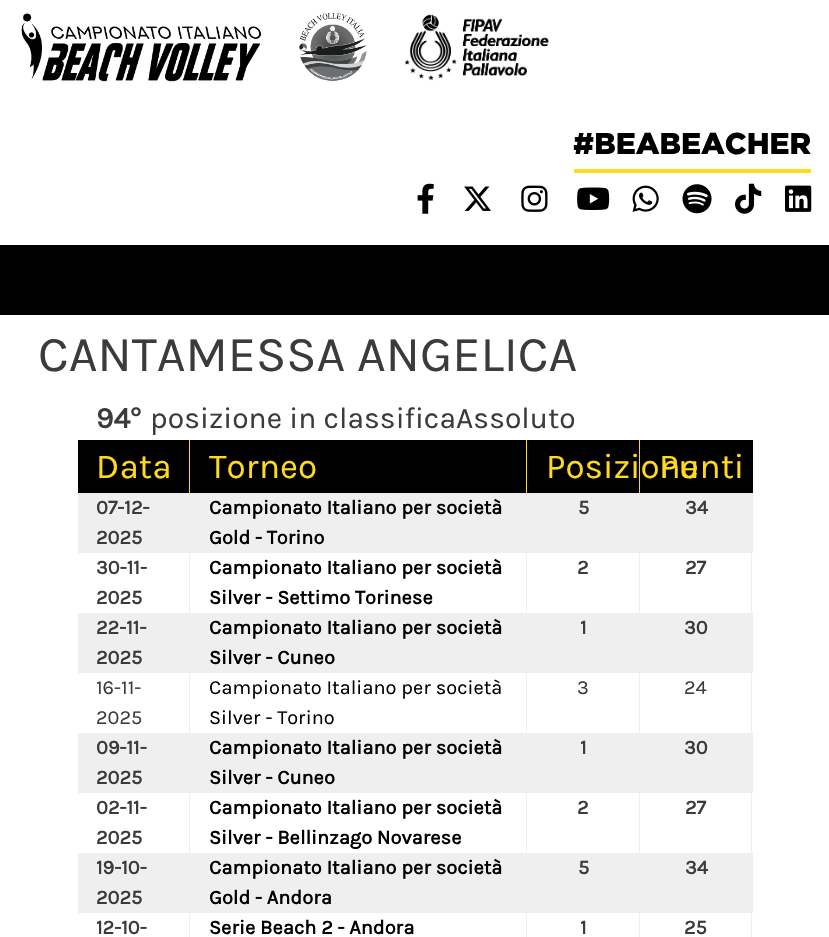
void draw(SkCanvas* canvas) {
	SkPaint paint;
	paint.setAntiAlias(true);
	canvas->clear(0xffffffff);
	canvas->drawImageRect(SkImages::DeferredFromEncodedData(SkData::MakeFromFileName("img1.png")), SkRect::MakeXYWH(21, 13, 241, 69), SkSamplingOptions());
	canvas->drawImageRect(SkImages::DeferredFromEncodedData(SkData::MakeFromFileName("img2.png")), SkRect::MakeXYWH(299, 12, 68, 70), SkSamplingOptions());
	canvas->drawImageRect(SkImages::DeferredFromEncodedData(SkData::MakeFromFileName("img3.png")), SkRect::MakeXYWH(404, 14, 145, 67), SkSamplingOptions());
	SkFont f1(fontMgr->matchFamilyStyle("Gotham", SkFontStyle(900, SkFontStyle::kNormal_Width, SkFontStyle::kUpright_Slant)), 30);
	f1.setSubpixel(true);
	paint.setColor(0xff000000);
	canvas->drawString("#BEABEACHER", 573, 154, f1, paint);
	paint.setColor(0xffffd91d);
	canvas->drawRect(SkRect::MakeXYWH(574, 169, 237, 4), paint);
	canvas->drawImageRect(SkImages::DeferredFromEncodedData(SkData::MakeFromFileName("img4.png")), SkRect::MakeXYWH(417, 183, 17, 31), SkSamplingOptions());
	canvas->drawImageRect(SkImages::DeferredFromEncodedData(SkData::MakeFromFileName("img5.png")), SkRect::MakeXYWH(464, 186, 27, 25), SkSamplingOptions());
	canvas->drawImageRect(SkImages::DeferredFromEncodedData(SkData::MakeFromFileName("img6.png")), SkRect::MakeXYWH(521, 185, 27, 27), SkSamplingOptions());
	canvas->drawImageRect(SkImages::DeferredFromEncodedData(SkData::MakeFromFileName("img7.png")), SkRect::MakeXYWH(577, 187, 33, 23), SkSamplingOptions());
	canvas->drawImageRect(SkImages::DeferredFromEncodedData(SkData::MakeFromFileName("img8.png")), SkRect::MakeXYWH(632, 185, 27, 27), SkSamplingOptions());
	canvas->drawImageRect(SkImages::DeferredFromEncodedData(SkData::MakeFromFileName("img9.png")), SkRect::MakeXYWH(682, 184, 30, 30), SkSamplingOptions());
	canvas->drawImageRect(SkImages::DeferredFromEncodedData(SkData::MakeFromFileName("img10.png")), SkRect::MakeXYWH(735, 183, 27, 31), SkSamplingOptions());
	canvas->drawImageRect(SkImages::DeferredFromEncodedData(SkData::MakeFromFileName("img11.png")), SkRect::MakeXYWH(785, 185, 27, 27), SkSamplingOptions());
	paint.setColor(0xff000000);
	canvas->drawRect(SkRect::MakeXYWH(0, 245, 829, 70), paint);
	SkFont f2(fontMgr->matchFamilyStyle("Karla", SkFontStyle::Normal()), 50);
	f2.setSubpixel(true);
	paint.setColor(0xff3b3b3b);
	canvas->drawString("CANTAMESSA ANGELICA", 38, 371, f2, paint);
	SkFont f3(fontMgr->matchFamilyStyle("Karla", SkFontStyle::Bold()), 30);
	f3.setSubpixel(true);
	canvas->drawString("94", 96, 428, f3, paint);
	SkFont f4(fontMgr->matchFamilyStyle("Liberation Sans", SkFontStyle::Bold()), 30);
	f4.setSubpixel(true);
	canvas->drawString("°", 130, 428, f4, paint);
	SkFont f5(fontMgr->matchFamilyStyle("Karla", SkFontStyle::Normal()), 30);
	f5.setSubpixel(true);
	canvas->drawString("posizione in classificaAssoluto", 150, 428, f5, paint);
	paint.setColor(0xff000000);
	canvas->drawRect(SkRect::MakeXYWH(78, 440, 675, 53), paint);
	paint.setColor(0xffffd91d);
	canvas->drawRect(SkRect::MakeXYWH(189, 440, 1, 53), paint);
	SkFont f6(fontMgr->matchFamilyStyle("Karla", SkFontStyle::Normal()), 35);
	f6.setSubpixel(true);
	canvas->drawString("Data", 96, 478, f6, paint);
	canvas->drawRect(SkRect::MakeXYWH(526, 440, 1, 53), paint);
	canvas->drawString("Torneo", 209, 478, f6, paint);
	canvas->drawRect(SkRect::MakeXYWH(639, 440, 1, 53), paint);
	canvas->drawString("Posizione", 546, 478, f6, paint);
	canvas->drawString("Punti", 659, 478, f6, paint);
	paint.setColor(0xffefefef);
	canvas->drawRect(SkRect::MakeXYWH(78, 493, 675, 60), paint);
	SkFont f7(fontMgr->matchFamilyStyle("Karla", SkFontStyle::Bold()), 20);
	f7.setSubpixel(true);
	paint.setColor(0xff3b3b3b);
	canvas->drawString("07-12-", 96, 514, f7, paint);
	canvas->drawString("2025", 96, 544, f7, paint);
	paint.setColor(0xff000000);
	canvas->drawString("Campionato Italiano per società", 209, 514, f7, paint);
	canvas->drawString("Gold - Torino", 209, 544, f7, paint);
	paint.setColor(0xff3b3b3b);
	canvas->drawString("5", 578, 514, f7, paint);
	canvas->drawString("34", 685, 514, f7, paint);
	paint.setColor(0xffefefef);
	canvas->drawRect(SkRect::MakeXYWH(189, 553, 1, 60), paint);
	paint.setColor(0xff3b3b3b);
	canvas->drawString("30-11-", 96, 574, f7, paint);
	canvas->drawString("2025", 96, 604, f7, paint);
	paint.setColor(0xffefefef);
	canvas->drawRect(SkRect::MakeXYWH(526, 553, 1, 60), paint);
	paint.setColor(0xff000000);
	canvas->drawString("Campionato Italiano per società", 209, 574, f7, paint);
	canvas->drawString("Silver - Settimo Torinese", 209, 604, f7, paint);
	paint.setColor(0xffefefef);
	canvas->drawRect(SkRect::MakeXYWH(639, 553, 1, 60), paint);
	paint.setColor(0xff3b3b3b);
	canvas->drawString("2", 577, 574, f7, paint);
	paint.setColor(0xffefefef);
	canvas->drawRect(SkRect::MakeXYWH(751, 553, 1, 60), paint);
	paint.setColor(0xff3b3b3b);
	canvas->drawString("27", 685, 574, f7, paint);
	paint.setColor(0xffefefef);
	canvas->drawRect(SkRect::MakeXYWH(78, 613, 675, 60), paint);
	paint.setColor(0xff3b3b3b);
	canvas->drawString("22-11-", 96, 634, f7, paint);
	canvas->drawString("2025", 96, 664, f7, paint);
	paint.setColor(0xff000000);
	canvas->drawString("Campionato Italiano per società", 209, 634, f7, paint);
	canvas->drawString("Silver - Cuneo", 209, 664, f7, paint);
	paint.setColor(0xff3b3b3b);
	canvas->drawString("1", 580, 634, f7, paint);
	canvas->drawString("30", 684, 634, f7, paint);
	paint.setColor(0xffefefef);
	canvas->drawRect(SkRect::MakeXYWH(189, 673, 1, 60), paint);
	SkFont f8(fontMgr->matchFamilyStyle("Karla", SkFontStyle::Normal()), 20);
	f8.setSubpixel(true);
	paint.setColor(0xff3b3b3b);
	canvas->drawString("16-11-", 96, 694, f8, paint);
	canvas->drawString("2025", 96, 724, f8, paint);
	paint.setColor(0xffefefef);
	canvas->drawRect(SkRect::MakeXYWH(526, 673, 1, 60), paint);
	paint.setColor(0xff000000);
	canvas->drawString("Campionato Italiano per società", 209, 694, f8, paint);
	canvas->drawString("Silver - Torino", 209, 724, f8, paint);
	paint.setColor(0xffefefef);
	canvas->drawRect(SkRect::MakeXYWH(639, 673, 1, 60), paint);
	paint.setColor(0xff3b3b3b);
	canvas->drawString("3", 577, 694, f8, paint);
	paint.setColor(0xffefefef);
	canvas->drawRect(SkRect::MakeXYWH(751, 673, 1, 60), paint);
	paint.setColor(0xff3b3b3b);
	canvas->drawString("24", 684, 694, f8, paint);
	paint.setColor(0xffefefef);
	canvas->drawRect(SkRect::MakeXYWH(78, 733, 675, 60), paint);
	paint.setColor(0xff3b3b3b);
	canvas->drawString("09-11-", 96, 754, f7, paint);
	canvas->drawString("2025", 96, 784, f7, paint);
	paint.setColor(0xff000000);
	canvas->drawString("Campionato Italiano per società", 209, 754, f7, paint);
	canvas->drawString("Silver - Cuneo", 209, 784, f7, paint);
	paint.setColor(0xff3b3b3b);
	canvas->drawString("1", 580, 754, f7, paint);
	canvas->drawString("30", 684, 754, f7, paint);
	paint.setColor(0xffefefef);
	canvas->drawRect(SkRect::MakeXYWH(189, 793, 1, 60), paint);
	paint.setColor(0xff3b3b3b);
	canvas->drawString("02-11-", 96, 814, f7, paint);
	canvas->drawString("2025", 96, 844, f7, paint);
	paint.setColor(0xffefefef);
	canvas->drawRect(SkRect::MakeXYWH(526, 793, 1, 60), paint);
	paint.setColor(0xff000000);
	canvas->drawString("Campionato Italiano per società", 209, 814, f7, paint);
	canvas->drawString("Silver - Bellinzago Novarese", 209, 844, f7, paint);
	paint.setColor(0xffefefef);
	canvas->drawRect(SkRect::MakeXYWH(639, 793, 1, 60), paint);
	paint.setColor(0xff3b3b3b);
	canvas->drawString("2", 577, 814, f7, paint);
	paint.setColor(0xffefefef);
	canvas->drawRect(SkRect::MakeXYWH(751, 793, 1, 60), paint);
	paint.setColor(0xff3b3b3b);
	canvas->drawString("27", 685, 814, f7, paint);
	paint.setColor(0xffefefef);
	canvas->drawRect(SkRect::MakeXYWH(78, 853, 675, 60), paint);
	paint.setColor(0xff3b3b3b);
	canvas->drawString("19-10-", 96, 874, f7, paint);
	canvas->drawString("2025", 96, 904, f7, paint);
	paint.setColor(0xff000000);
	canvas->drawString("Campionato Italiano per società", 209, 874, f7, paint);
	canvas->drawString("Gold - Andora", 209, 904, f7, paint);
	paint.setColor(0xff3b3b3b);
	canvas->drawString("5", 578, 874, f7, paint);
	canvas->drawString("34", 685, 874, f7, paint);
	paint.setColor(0xffefefef);
	canvas->drawRect(SkRect::MakeXYWH(189, 913, 1, 24), paint);
	paint.setColor(0xff3b3b3b);
	canvas->drawString("12-10-", 96, 934, f7, paint);
	paint.setColor(0xffefefef);
	canvas->drawRect(SkRect::MakeXYWH(526, 913, 1, 24), paint);
	paint.setColor(0xff000000);
	canvas->drawString("Serie Beach 2 - Andora", 209, 934, f7, paint);
	paint.setColor(0xffefefef);
	canvas->drawRect(SkRect::MakeXYWH(639, 913, 1, 24), paint);
	paint.setColor(0xff3b3b3b);
	canvas->drawString("1", 580, 934, f7, paint);
	paint.setColor(0xffefefef);
	canvas->drawRect(SkRect::MakeXYWH(751, 913, 1, 24), paint);
	paint.setColor(0xff3b3b3b);
	canvas->drawString("25", 684, 934, f7, paint);
}
